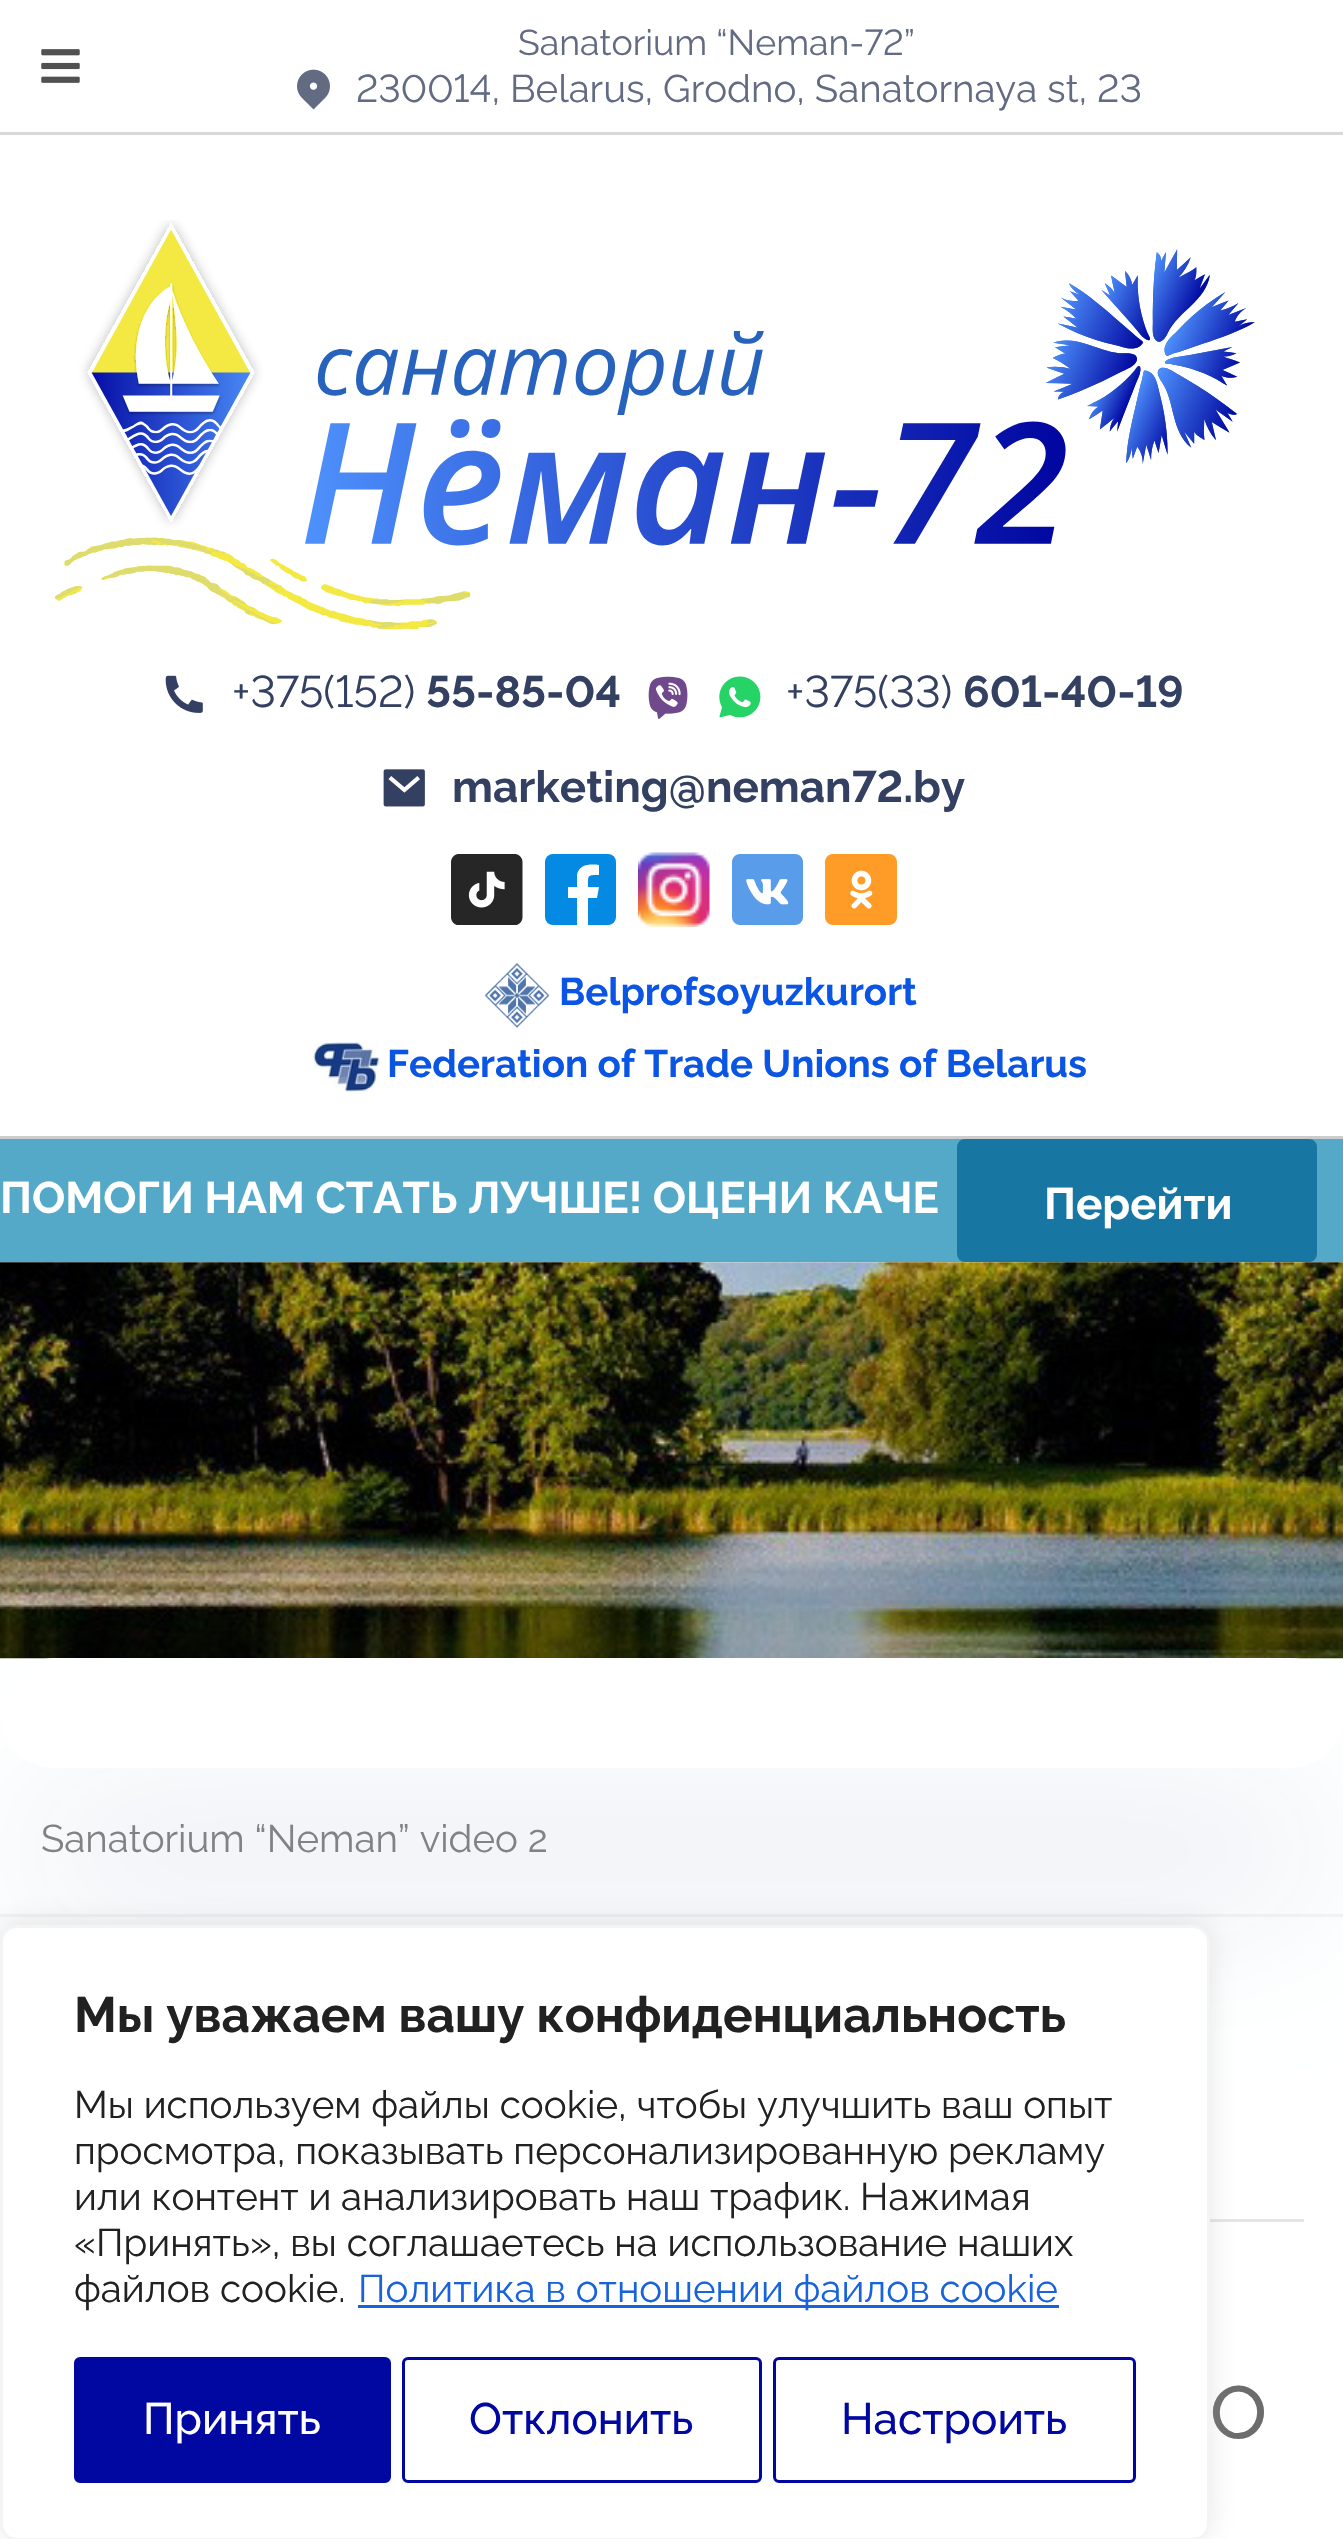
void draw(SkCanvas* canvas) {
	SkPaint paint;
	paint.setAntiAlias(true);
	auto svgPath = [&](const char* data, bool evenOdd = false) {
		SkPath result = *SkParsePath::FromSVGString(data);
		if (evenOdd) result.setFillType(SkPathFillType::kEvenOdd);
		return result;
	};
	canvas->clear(0xffffffff);
	paint.setColor(0xffd9d9d9);
	canvas->drawRect(SkRect::MakeXYWH(0, 132, 1343, 3), paint);
	SkFont f1(fontMgr->matchFamilyStyle("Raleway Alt", SkFontStyle::Normal()), 35.75);
	f1.setSubpixel(true);
	paint.setColor(0xff626b82);
	canvas->drawString("Sanatorium “Neman-72”", 518, 55, f1, paint);
	canvas->drawImageRect(SkImages::DeferredFromEncodedData(SkData::MakeFromFileName("img1.png")), SkRect::MakeXYWH(41, 49, 39, 34), SkSamplingOptions());
	canvas->drawImageRect(SkImages::DeferredFromEncodedData(SkData::MakeFromFileName("img2.png")), SkRect::MakeXYWH(297, 69, 33, 41), SkSamplingOptions());
	SkFont f2(fontMgr->matchFamilyStyle("Raleway Alt", SkFontStyle::Normal()), 38.5);
	f2.setSubpixel(true);
	canvas->drawString("230014, Belarus, Grodno, Sanatornaya st, 23", 356, 102, f2, paint);
	paint.setColor(0xffcccccc);
	canvas->drawRect(SkRect::MakeXYWH(0, 1136, 1343, 3), paint);
	canvas->drawImageRect(SkImages::DeferredFromEncodedData(SkData::MakeFromFileName("img3.png")), SkRect::MakeXYWH(55, 220, 1200, 410), SkSamplingOptions());
	canvas->drawImageRect(SkImages::DeferredFromEncodedData(SkData::MakeFromFileName("img4.png")), SkRect::MakeXYWH(165, 675, 38, 38), SkSamplingOptions());
	SkFont f3(fontMgr->matchFamilyStyle("Raleway Alt", SkFontStyle::Normal()), 44);
	f3.setSubpixel(true);
	paint.setColor(0xff344061);
	canvas->drawString("+375(152)", 232, 707, f3, paint);
	SkFont f4(fontMgr->matchFamilyStyle("Raleway Alt", SkFontStyle::Bold()), 44);
	f4.setSubpixel(true);
	canvas->drawString("55-85-04", 426, 707, f4, paint);
	canvas->drawImageRect(SkImages::DeferredFromEncodedData(SkData::MakeFromFileName("img5.png")), SkRect::MakeXYWH(648, 676, 40, 43), SkSamplingOptions());
	canvas->drawImageRect(SkImages::DeferredFromEncodedData(SkData::MakeFromFileName("img6.png")), SkRect::MakeXYWH(719, 676, 42, 42), SkSamplingOptions());
	canvas->drawString("+375(33)", 786, 707, f3, paint);
	canvas->drawString("601-40-19", 963, 707, f4, paint);
	canvas->drawImageRect(SkImages::DeferredFromEncodedData(SkData::MakeFromFileName("img7.png")), SkRect::MakeXYWH(383, 769, 42, 38), SkSamplingOptions());
	canvas->drawString("marketing@neman72.by", 452, 802, f4, paint);
	canvas->drawImageRect(SkImages::DeferredFromEncodedData(SkData::MakeFromFileName("img8.png")), SkRect::MakeXYWH(451, 854, 72, 71), SkSamplingOptions());
	paint.setColor(0xff058ae3);
	canvas->drawRoundRect(SkRect::MakeXYWH(545, 854, 71, 71), 8, 8, paint);
	paint.setColor(0xffffffff);
	canvas->drawPath(svgPath("M588 925V898H597L599 887H588C588 875 587 875 599 875V865C590 864 579 864 577 875V887H568V898H577V925Z"), paint);
	canvas->drawImageRect(SkImages::DeferredFromEncodedData(SkData::MakeFromFileName("img9.png")), SkRect::MakeXYWH(638, 852, 72, 75), SkSamplingOptions());
	canvas->drawImageRect(SkImages::DeferredFromEncodedData(SkData::MakeFromFileName("img10.png")), SkRect::MakeXYWH(732, 854, 71, 71), SkSamplingOptions());
	canvas->drawImageRect(SkImages::DeferredFromEncodedData(SkData::MakeFromFileName("img11.png")), SkRect::MakeXYWH(825, 854, 72, 71), SkSamplingOptions());
	canvas->drawImageRect(SkImages::DeferredFromEncodedData(SkData::MakeFromFileName("img12.png")), SkRect::MakeXYWH(484, 963, 66, 65), SkSamplingOptions());
	SkFont f5(fontMgr->matchFamilyStyle("Raleway", SkFontStyle::Bold()), 38.5);
	f5.setSubpixel(true);
	paint.setColor(0xff0b55e5);
	canvas->drawString("Belprofsoyuzkurort", 559, 1005, f5, paint);
	canvas->drawImageRect(SkImages::DeferredFromEncodedData(SkData::MakeFromFileName("img13.png")), SkRect::MakeXYWH(313, 1042, 67, 50), SkSamplingOptions());
	canvas->drawString("Federation of Trade Unions of Belarus", 387, 1077, f5, paint);
	paint.setColor(0xff53a9c7);
	canvas->drawRect(SkRect::MakeXYWH(0, 1139, 1343, 123), paint);
	SkFont f6(fontMgr->matchFamilyStyle("Raleway", SkFontStyle::Bold()), 44);
	f6.setSubpixel(true);
	paint.setColor(0xffffffff);
	canvas->drawString("ПОМОГИ НАМ СТАТЬ ЛУЧШЕ! ОЦЕНИ КАЧЕ", 0, 1213, f6, paint);
	paint.setColor(0xff1776a2);
	canvas->drawRoundRect(SkRect::MakeXYWH(958.5, 1140.5, 357, 120), 6.5, 6.5, paint);
	paint.setStroke(true);
	paint.setStrokeWidth(3);
	canvas->drawRoundRect(SkRect::MakeXYWH(958.5, 1140.5, 357, 120), 6.5, 6.5, paint);
	paint.setStroke(false);
	paint.setColor(0xffffffff);
	canvas->drawString("Перейти", 1044, 1219, f6, paint);
	canvas->drawImageRect(SkImages::DeferredFromEncodedData(SkData::MakeFromFileName("img14.png")), SkRect::MakeXYWH(0, 1262, 1343, 397), SkSamplingOptions());
	paint.setColor(0xfff5f5f5);
	canvas->drawRect(SkRect::MakeXYWH(0, 1914, 1343, 3), paint);
	paint.setColor(0x2600266f);
	paint.setMaskFilter(SkMaskFilter::MakeBlur(kNormal_SkBlurStyle, 82.5));
	canvas->drawRoundRect(SkRect::MakeXYWH(28, 1818, 1289, 66), 33, 33, paint);
	paint.setMaskFilter(nullptr);
	paint.setColor(0xffffffff);
	canvas->drawRoundRect(SkRect::MakeXYWH(0, 1658, 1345, 110), 55, 55, paint);
	SkFont f7(fontMgr->matchFamilyStyle("Raleway", SkFontStyle::Normal()), 38.5);
	f7.setSubpixel(true);
	paint.setColor(0xff828282);
	canvas->drawString("Sanatorium “Neman” video 2", 41, 1852, f7, paint);
	paint.setColor(0xffe5e5e5);
	canvas->drawRect(SkRect::MakeXYWH(1210, 2219, 94, 3), paint);
	SkFont f8(fontMgr->matchFamilyStyle("Raleway", SkFontStyle::Normal()), 99);
	f8.setSubpixel(true);
	paint.setColor(0xff6c6c6c);
	canvas->drawString("o", 1209, 2438, f8, paint);
	paint.setColor(0x4dacabab);
	paint.setMaskFilter(SkMaskFilter::MakeBlur(kNormal_SkBlurStyle, 14));
	canvas->drawRoundRect(SkRect::MakeXYWH(0, 1922, 1210, 616), 17, 17, paint);
	paint.setMaskFilter(nullptr);
	paint.setColor(0xffffffff);
	canvas->drawRoundRect(SkRect::MakeXYWH(1.5, 1926.5, 1207, 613), 15.5, 15.5, paint);
	paint.setStroke(true);
	paint.setColor(0xfff4f4f4);
	canvas->drawRoundRect(SkRect::MakeXYWH(1.5, 1926.5, 1207, 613), 15.5, 15.5, paint);
	SkFont f9(fontMgr->matchFamilyStyle("Raleway", SkFontStyle::Bold()), 49.5);
	f9.setSubpixel(true);
	paint.setStroke(false);
	paint.setColor(0xff212121);
	canvas->drawString("Мы уважаем вашу конфиденциальность", 74, 2032, f9, paint);
	canvas->drawString("Мы используем файлы cookie, чтобы улучшить ваш опыт", 74, 2118, f7, paint);
	canvas->drawString("просмотра, показывать персонализированную рекламу", 74, 2164, f7, paint);
	canvas->drawString("или контент и анализировать наш трафик. Нажимая", 74, 2210, f7, paint);
	canvas->drawString("«Принять», вы соглашаетесь на использование наших", 74, 2256, f7, paint);
	canvas->drawString("файлов cookie.", 74, 2302, f7, paint);
	paint.setColor(0xff1863dc);
	canvas->drawRect(SkRect::MakeXYWH(358, 2305, 701, 3), paint);
	canvas->drawString("Политика в отношении файлов cookie", 358, 2302, f7, paint);
	paint.setColor(0xff0107a1);
	canvas->drawRoundRect(SkRect::MakeXYWH(75.5, 2358.5, 314, 123), 4.5, 4.5, paint);
	paint.setStroke(true);
	canvas->drawRoundRect(SkRect::MakeXYWH(75.5, 2358.5, 314, 123), 4.5, 4.5, paint);
	SkFont f10(fontMgr->matchFamilyStyle("Raleway", SkFontStyle(500, SkFontStyle::kNormal_Width, SkFontStyle::kUpright_Slant)), 44);
	f10.setSubpixel(true);
	paint.setStroke(false);
	paint.setColor(0xffffffff);
	canvas->drawString("Принять", 143, 2434, f10, paint);
	paint.setStroke(true);
	paint.setColor(0xff0107a1);
	canvas->drawRoundRect(SkRect::MakeXYWH(403.5, 2358.5, 357, 123), 4.5, 4.5, paint);
	paint.setStroke(false);
	canvas->drawString("Отклонить", 469, 2434, f10, paint);
	paint.setStroke(true);
	canvas->drawRoundRect(SkRect::MakeXYWH(774.5, 2358.5, 360, 123), 4.5, 4.5, paint);
	paint.setStroke(false);
	canvas->drawString("Настроить", 841, 2434, f10, paint);
}
